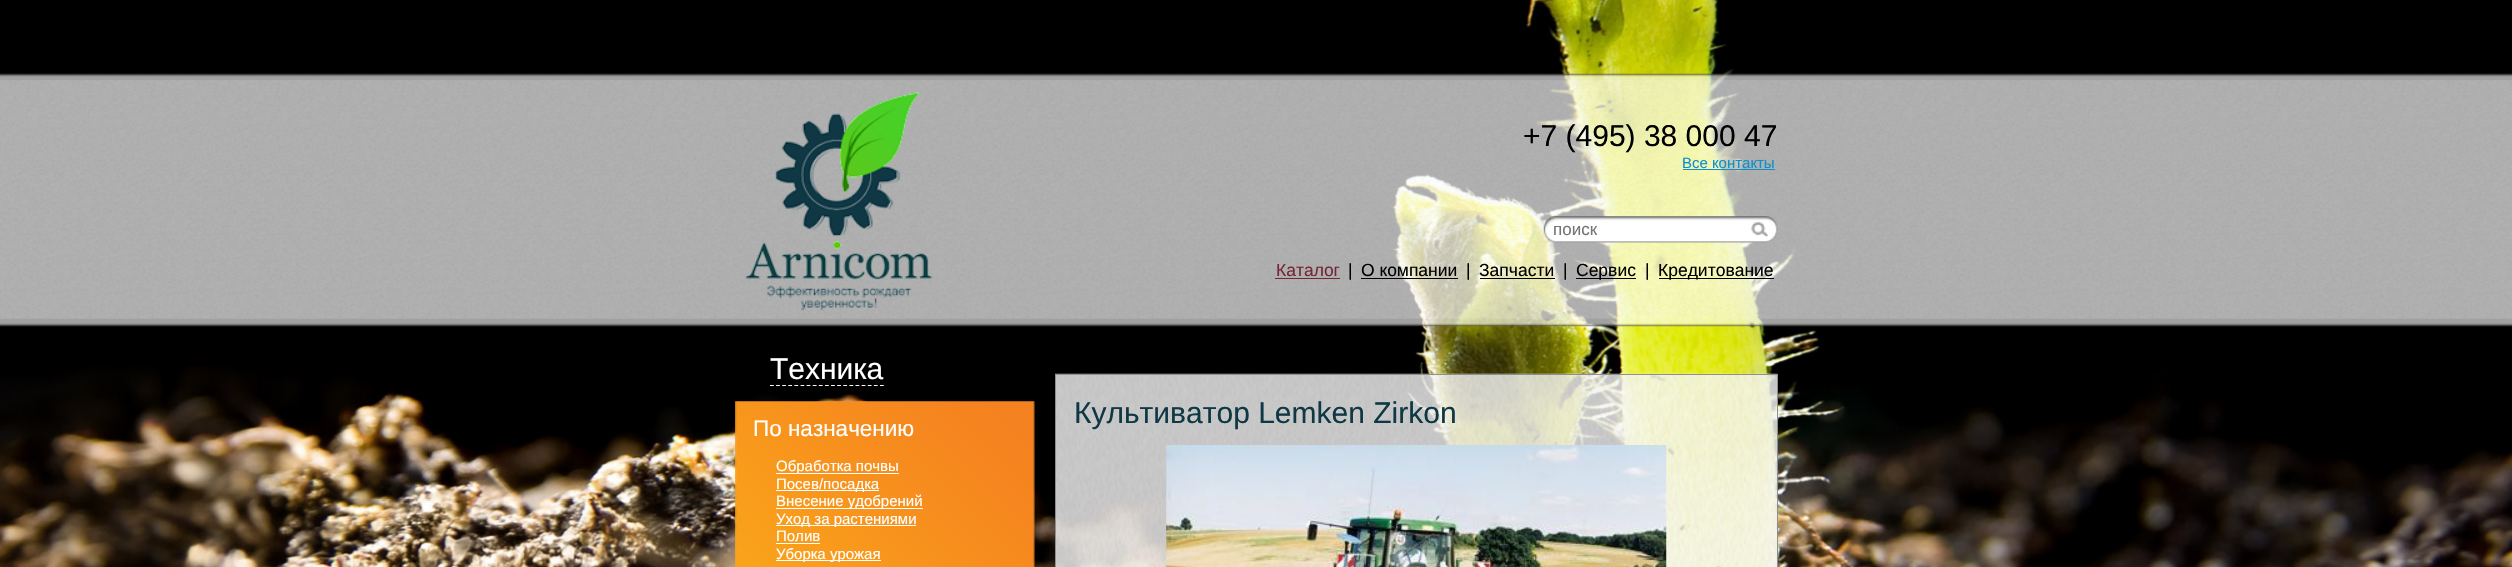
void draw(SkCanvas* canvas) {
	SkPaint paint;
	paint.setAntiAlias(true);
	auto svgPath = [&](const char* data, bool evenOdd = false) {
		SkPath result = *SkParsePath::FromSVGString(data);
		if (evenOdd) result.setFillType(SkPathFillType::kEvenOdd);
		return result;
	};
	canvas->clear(0xffffffff);
	canvas->drawImageRect(SkImages::DeferredFromEncodedData(SkData::MakeFromFileName("img1.png")), SkRect::MakeXYWH(0, 0, 2512, 567), SkSamplingOptions());
	canvas->drawImageRect(SkImages::DeferredFromEncodedData(SkData::MakeFromFileName("img2.png")), SkRect::MakeXYWH(0, 73, 2512, 254), SkSamplingOptions());
	canvas->drawImageRect(SkImages::DeferredFromEncodedData(SkData::MakeFromFileName("img3.png")), SkRect::MakeXYWH(745, 92, 188, 219), SkSamplingOptions());
	SkFont f1(fontMgr->matchFamilyStyle("Liberation Sans", SkFontStyle::Normal()), 30);
	f1.setSubpixel(true);
	paint.setColor(0xff000000);
	canvas->drawString("+7 (495) 38 000 47", 1523, 146, f1, paint);
	SkFont f2(fontMgr->matchFamilyStyle("Liberation Sans", SkFontStyle::Normal()), 15);
	f2.setSubpixel(true);
	paint.setColor(0xff0a90cd);
	canvas->drawString("Все контакты", 1682, 168, f2, paint);
	canvas->drawRect(SkRect::MakeXYWH(1683, 169, 92, 1), paint);
	canvas->drawImageRect(SkImages::DeferredFromEncodedData(SkData::MakeFromFileName("img4.png")), SkRect::MakeXYWH(1543, 216, 235, 27), SkSamplingOptions());
	SkFont f3(fontMgr->matchFamilyStyle("Liberation Sans", SkFontStyle::Normal()), 17);
	f3.setSubpixel(true);
	paint.setColor(0xff757575);
	canvas->drawString("поиск", 1553, 235, f3, paint);
	canvas->drawImageRect(SkImages::DeferredFromEncodedData(SkData::MakeFromFileName("img5.png")), SkRect::MakeXYWH(1751, 221, 17, 16), SkSamplingOptions());
	SkFont f4(fontMgr->matchFamilyStyle("Liberation Sans", SkFontStyle::Normal()), 17.5);
	f4.setSubpixel(true);
	paint.setColor(0xff732839);
	canvas->drawString("Каталог", 1276, 276, f4, paint);
	canvas->drawRect(SkRect::MakeXYWH(1275, 278, 65, 1), paint);
	paint.setColor(0xff000000);
	canvas->drawString("|", 1348, 276, f4, paint);
	canvas->drawString("О компании", 1361, 276, f4, paint);
	canvas->drawRect(SkRect::MakeXYWH(1361, 278, 97, 1), paint);
	canvas->drawString("|", 1466, 276, f4, paint);
	canvas->drawString("Запчасти", 1479, 276, f4, paint);
	canvas->drawRect(SkRect::MakeXYWH(1480, 278, 75, 1), paint);
	canvas->drawString("|", 1563, 276, f4, paint);
	canvas->drawRect(SkRect::MakeXYWH(1576, 278, 60, 1), paint);
	canvas->drawString("Сервис", 1576, 276, f4, paint);
	canvas->drawString("|", 1645, 276, f4, paint);
	canvas->drawRect(SkRect::MakeXYWH(1659, 278, 115, 1), paint);
	canvas->drawString("Кредитование", 1658, 276, f4, paint);
	paint.setColor(0xffffffff);
	canvas->drawString("Техника", 770, 379, f1, paint);
	paint.setStroke(true);
	paint.setStrokeWidth(1.2);
	paint.setPathEffect(SkDashPathEffect::Make({{3.75f, 2.36f}}, 0));
	canvas->drawPath(svgPath("M770 385.5H884"), paint);
	paint.setPathEffect(nullptr);
	canvas->drawImageRect(SkImages::DeferredFromEncodedData(SkData::MakeFromFileName("img6.png")), SkRect::MakeXYWH(735, 401, 300, 166), SkSamplingOptions());
	SkFont f5(fontMgr->matchFamilyStyle("Liberation Sans", SkFontStyle::Normal()), 22.5);
	f5.setSubpixel(true);
	paint.setStroke(false);
	canvas->drawString("По назначению", 753, 436, f5, paint);
	canvas->drawRect(SkRect::MakeXYWH(776, 473, 123, 1), paint);
	canvas->drawString("Обработка почвы", 776, 471, f2, paint);
	canvas->drawRect(SkRect::MakeXYWH(776, 490, 103, 1), paint);
	canvas->drawString("Посев/посадка", 776, 489, f2, paint);
	canvas->drawRect(SkRect::MakeXYWH(776, 508, 147, 1), paint);
	canvas->drawString("Внесение удобрений", 776, 506, f2, paint);
	canvas->drawRect(SkRect::MakeXYWH(776, 525, 140, 1), paint);
	canvas->drawString("Уход за растениями", 776, 524, f2, paint);
	canvas->drawString("Полив", 776, 541, f2, paint);
	canvas->drawRect(SkRect::MakeXYWH(776, 543, 44, 1), paint);
	canvas->drawRect(SkRect::MakeXYWH(776, 560, 105, 1), paint);
	canvas->drawString("Уборка урожая", 776, 559, f2, paint);
	canvas->drawImageRect(SkImages::DeferredFromEncodedData(SkData::MakeFromFileName("img7.png")), SkRect::MakeXYWH(1055, 373, 723, 194), SkSamplingOptions());
	paint.setStroke(true);
	paint.setStrokeWidth(1);
	paint.setColor(0xff8f8f90);
	canvas->drawRect(SkRect::MakeXYWH(1055.5, 374.5, 722, 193), paint);
	paint.setStroke(false);
	paint.setColor(0xff0f3844);
	canvas->drawString("Культиватор Lemken Zirkon", 1074, 423, f1, paint);
	canvas->drawImageRect(SkImages::DeferredFromEncodedData(SkData::MakeFromFileName("img8.png")), SkRect::MakeXYWH(1166, 445, 501, 122), SkSamplingOptions());
}
